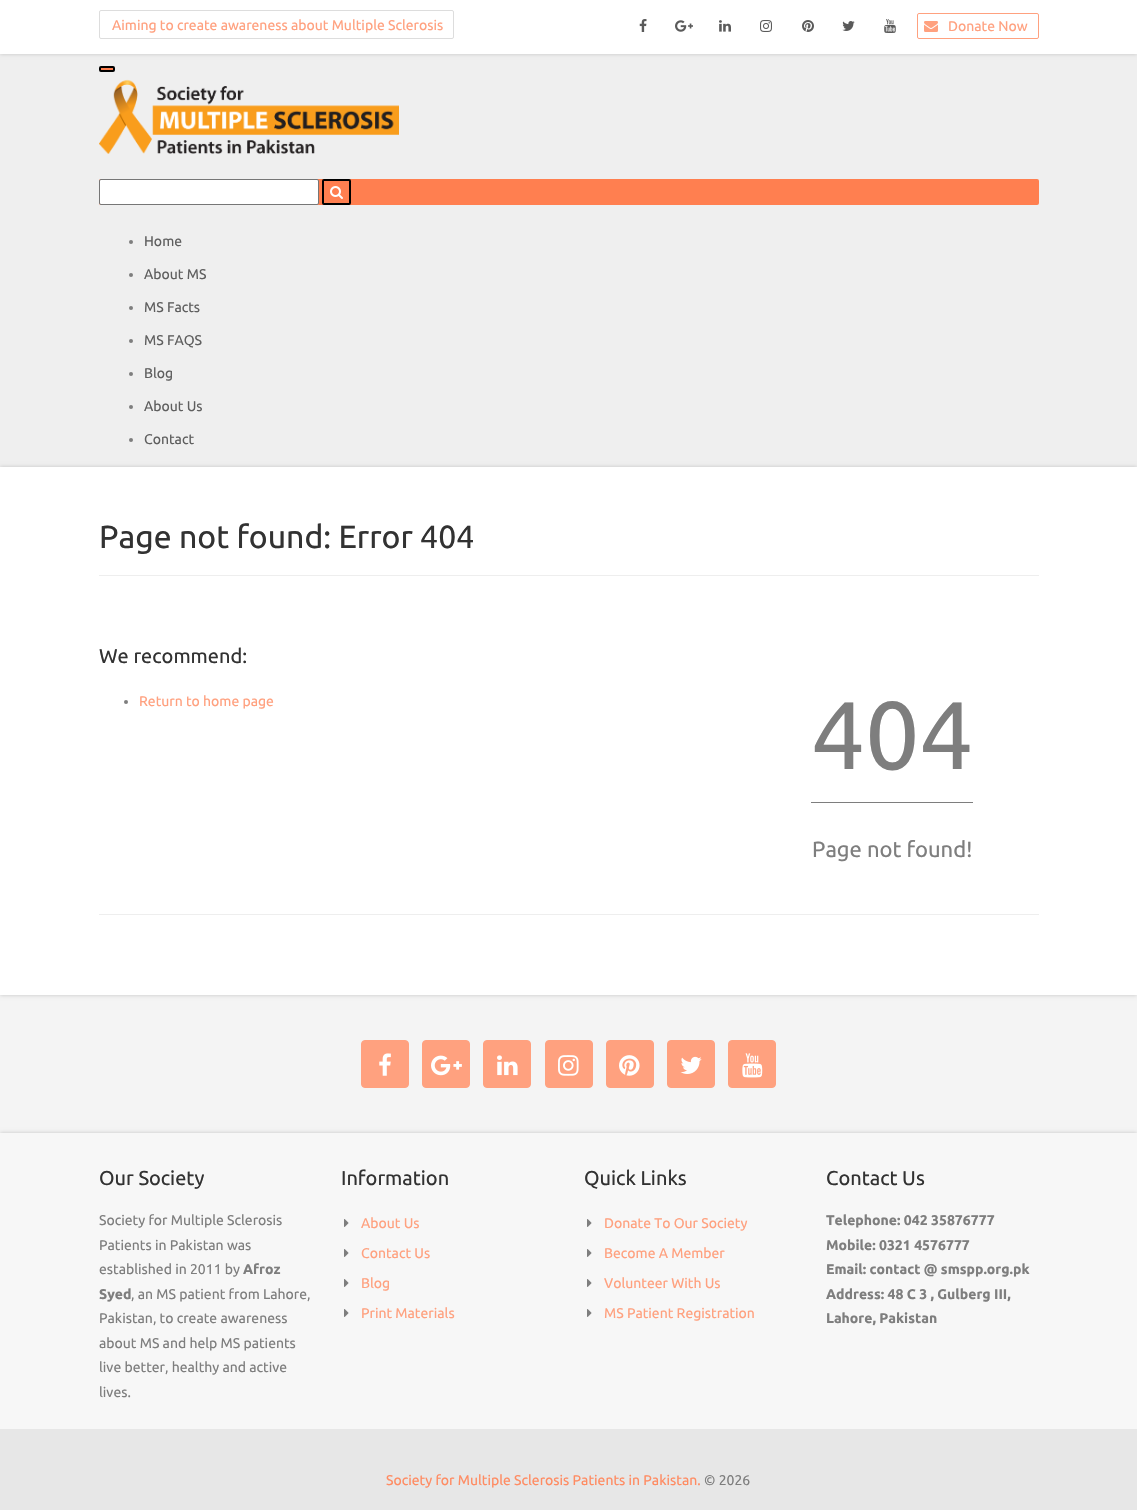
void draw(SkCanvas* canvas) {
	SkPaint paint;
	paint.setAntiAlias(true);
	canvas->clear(0xfff4f4f4);
	paint.setColor(0xffefefef);
	canvas->drawRect(SkRect::MakeXYWH(0, 54, 1137, 413), paint);
	paint.setColor(0xffc3c3c3);
	paint.setMaskFilter(SkMaskFilter::MakeBlur(kNormal_SkBlurStyle, 2));
	canvas->drawRect(SkRect::MakeXYWH(0, 0, 1137, 54), paint);
	paint.setMaskFilter(nullptr);
	paint.setColor(0xffffffff);
	canvas->drawRect(SkRect::MakeXYWH(0, 0, 1137, 54), paint);
	paint.setStroke(true);
	paint.setStrokeWidth(1);
	paint.setColor(0xffdddddd);
	canvas->drawRoundRect(SkRect::MakeXYWH(99.5, 10.5, 354, 28), 1.5, 1.5, paint);
	SkFont f1(fontMgr->matchFamilyStyle("Ubuntu", SkFontStyle::Normal()), 14);
	f1.setSubpixel(true);
	paint.setStroke(false);
	paint.setColor(0xffffa17f);
	canvas->drawString("Aiming to create awareness about Multiple Sclerosis", 112, 30, f1, paint);
	canvas->drawImageRect(SkImages::DeferredFromEncodedData(SkData::MakeFromFileName("img1.png")), SkRect::MakeXYWH(639, 19, 8, 13), SkSamplingOptions());
	canvas->drawImageRect(SkImages::DeferredFromEncodedData(SkData::MakeFromFileName("img2.png")), SkRect::MakeXYWH(675, 20, 18, 12), SkSamplingOptions());
	canvas->drawImageRect(SkImages::DeferredFromEncodedData(SkData::MakeFromFileName("img3.png")), SkRect::MakeXYWH(719, 20, 12, 12), SkSamplingOptions());
	canvas->drawImageRect(SkImages::DeferredFromEncodedData(SkData::MakeFromFileName("img4.png")), SkRect::MakeXYWH(760, 20, 12, 12), SkSamplingOptions());
	canvas->drawImageRect(SkImages::DeferredFromEncodedData(SkData::MakeFromFileName("img5.png")), SkRect::MakeXYWH(802, 20, 12, 12), SkSamplingOptions());
	canvas->drawImageRect(SkImages::DeferredFromEncodedData(SkData::MakeFromFileName("img6.png")), SkRect::MakeXYWH(842, 21, 13, 10), SkSamplingOptions());
	canvas->drawImageRect(SkImages::DeferredFromEncodedData(SkData::MakeFromFileName("img7.png")), SkRect::MakeXYWH(884, 19, 12, 14), SkSamplingOptions());
	paint.setStroke(true);
	canvas->drawRoundRect(SkRect::MakeXYWH(917.5, 13.5, 121, 25), 1.5, 1.5, paint);
	canvas->drawImageRect(SkImages::DeferredFromEncodedData(SkData::MakeFromFileName("img8.png")), SkRect::MakeXYWH(924, 21, 14, 11), SkSamplingOptions());
	paint.setStroke(false);
	canvas->drawString("Donate Now", 948, 31, f1, paint);
	paint.setColor(0xffff7f50);
	canvas->drawRoundRect(SkRect::MakeXYWH(100, 67, 14, 4), 1, 1, paint);
	paint.setStroke(true);
	paint.setStrokeWidth(2);
	paint.setColor(0xff000000);
	canvas->drawRoundRect(SkRect::MakeXYWH(100, 67, 14, 4), 1, 1, paint);
	canvas->drawImageRect(SkImages::DeferredFromEncodedData(SkData::MakeFromFileName("img9.png")), SkRect::MakeXYWH(99, 79, 300, 75), SkSamplingOptions());
	paint.setStroke(false);
	paint.setColor(0xffff7f50);
	canvas->drawRoundRect(SkRect::MakeXYWH(99, 179, 940, 26), 2, 2, paint);
	paint.setColor(0xffffffff);
	canvas->drawRoundRect(SkRect::MakeXYWH(99.5, 179.5, 219, 25), 1.5, 1.5, paint);
	paint.setStroke(true);
	paint.setStrokeWidth(1);
	paint.setColor(0xff767676);
	canvas->drawRoundRect(SkRect::MakeXYWH(99.5, 179.5, 219, 25), 1.5, 1.5, paint);
	paint.setStrokeWidth(2);
	paint.setColor(0xff000000);
	canvas->drawRoundRect(SkRect::MakeXYWH(323, 180, 27, 24), 1, 1, paint);
	canvas->drawImageRect(SkImages::DeferredFromEncodedData(SkData::MakeFromFileName("img10.png")), SkRect::MakeXYWH(330, 186, 13, 13), SkSamplingOptions());
	paint.setStroke(false);
	paint.setColor(0xff7e7e7e);
	canvas->drawCircle(131, 242, 2, paint);
	paint.setColor(0xff5f5f5f);
	canvas->drawString("Home", 144, 246, f1, paint);
	paint.setColor(0xff7e7e7e);
	canvas->drawCircle(131, 275, 2, paint);
	paint.setColor(0xff5f5f5f);
	canvas->drawString("About MS", 144, 279, f1, paint);
	paint.setColor(0xff7e7e7e);
	canvas->drawCircle(131, 308, 2, paint);
	paint.setColor(0xff5f5f5f);
	canvas->drawString("MS Facts", 144, 312, f1, paint);
	paint.setColor(0xff7e7e7e);
	canvas->drawCircle(131, 341, 2, paint);
	paint.setColor(0xff5f5f5f);
	canvas->drawString("MS FAQS", 144, 345, f1, paint);
	paint.setColor(0xff7e7e7e);
	canvas->drawCircle(131, 374, 2, paint);
	paint.setColor(0xff5f5f5f);
	canvas->drawString("Blog", 144, 378, f1, paint);
	paint.setColor(0xff7e7e7e);
	canvas->drawCircle(131, 407, 2, paint);
	paint.setColor(0xff5f5f5f);
	canvas->drawString("About Us", 144, 411, f1, paint);
	paint.setColor(0xff7e7e7e);
	canvas->drawCircle(131, 440, 2, paint);
	paint.setColor(0xff5f5f5f);
	canvas->drawString("Contact", 144, 444, f1, paint);
	paint.setColor(0xffc3c3c3);
	paint.setMaskFilter(SkMaskFilter::MakeBlur(kNormal_SkBlurStyle, 2));
	canvas->drawRect(SkRect::MakeXYWH(0, 467, 1137, 528), paint);
	paint.setMaskFilter(nullptr);
	paint.setColor(0xffffffff);
	canvas->drawRect(SkRect::MakeXYWH(0, 467, 1137, 528), paint);
	SkFont f2(fontMgr->matchFamilyStyle("Ubuntu", SkFontStyle::Normal()), 32);
	f2.setSubpixel(true);
	paint.setColor(0xff323232);
	canvas->drawString("Page not found: Error 404", 99, 548, f2, paint);
	paint.setColor(0xffeeeeee);
	canvas->drawRect(SkRect::MakeXYWH(99, 575, 940, 1), paint);
	SkFont f3(fontMgr->matchFamilyStyle("Ubuntu", SkFontStyle::Normal()), 20);
	f3.setSubpixel(true);
	paint.setColor(0xff323232);
	canvas->drawString("We recommend:", 99, 663, f3, paint);
	paint.setColor(0xff7e7e7e);
	canvas->drawCircle(126, 702, 2, paint);
	paint.setColor(0xffffa17f);
	canvas->drawString("Return to home page", 139, 706, f1, paint);
	paint.setColor(0xff7e7e7e);
	canvas->drawRect(SkRect::MakeXYWH(811, 802, 162, 1), paint);
	SkFont f4(fontMgr->matchFamilyStyle("Ubuntu", SkFontStyle::Normal()), 96);
	f4.setSubpixel(true);
	canvas->drawString("404", 811, 769, f4, paint);
	SkFont f5(fontMgr->matchFamilyStyle("Ubuntu", SkFontStyle::Normal()), 22);
	f5.setSubpixel(true);
	canvas->drawString("Page not found!", 812, 857, f5, paint);
	paint.setColor(0xffeeeeee);
	canvas->drawRect(SkRect::MakeXYWH(99, 914, 940, 1), paint);
	paint.setColor(0xffffa17f);
	canvas->drawRoundRect(SkRect::MakeXYWH(361.5, 1040.5, 47, 47), 3.5, 3.5, paint);
	paint.setStroke(true);
	paint.setStrokeWidth(1);
	canvas->drawRoundRect(SkRect::MakeXYWH(361.5, 1040.5, 47, 47), 3.5, 3.5, paint);
	canvas->drawImageRect(SkImages::DeferredFromEncodedData(SkData::MakeFromFileName("img11.png")), SkRect::MakeXYWH(379, 1053, 12, 23), SkSamplingOptions());
	paint.setStroke(false);
	canvas->drawRoundRect(SkRect::MakeXYWH(422.5, 1040.5, 47, 47), 3.5, 3.5, paint);
	paint.setStroke(true);
	canvas->drawRoundRect(SkRect::MakeXYWH(422.5, 1040.5, 47, 47), 3.5, 3.5, paint);
	canvas->drawImageRect(SkImages::DeferredFromEncodedData(SkData::MakeFromFileName("img12.png")), SkRect::MakeXYWH(431, 1055, 31, 21), SkSamplingOptions());
	paint.setStroke(false);
	canvas->drawRoundRect(SkRect::MakeXYWH(483.5, 1040.5, 47, 47), 3.5, 3.5, paint);
	paint.setStroke(true);
	canvas->drawRoundRect(SkRect::MakeXYWH(483.5, 1040.5, 47, 47), 3.5, 3.5, paint);
	canvas->drawImageRect(SkImages::DeferredFromEncodedData(SkData::MakeFromFileName("img13.png")), SkRect::MakeXYWH(497, 1055, 21, 21), SkSamplingOptions());
	paint.setStroke(false);
	canvas->drawRoundRect(SkRect::MakeXYWH(545.5, 1040.5, 47, 47), 3.5, 3.5, paint);
	paint.setStroke(true);
	canvas->drawRoundRect(SkRect::MakeXYWH(545.5, 1040.5, 47, 47), 3.5, 3.5, paint);
	canvas->drawImageRect(SkImages::DeferredFromEncodedData(SkData::MakeFromFileName("img14.png")), SkRect::MakeXYWH(558, 1055, 21, 21), SkSamplingOptions());
	paint.setStroke(false);
	canvas->drawRoundRect(SkRect::MakeXYWH(606.5, 1040.5, 47, 47), 3.5, 3.5, paint);
	paint.setStroke(true);
	canvas->drawRoundRect(SkRect::MakeXYWH(606.5, 1040.5, 47, 47), 3.5, 3.5, paint);
	canvas->drawImageRect(SkImages::DeferredFromEncodedData(SkData::MakeFromFileName("img15.png")), SkRect::MakeXYWH(619, 1055, 21, 21), SkSamplingOptions());
	paint.setStroke(false);
	canvas->drawRoundRect(SkRect::MakeXYWH(667.5, 1040.5, 47, 47), 3.5, 3.5, paint);
	paint.setStroke(true);
	canvas->drawRoundRect(SkRect::MakeXYWH(667.5, 1040.5, 47, 47), 3.5, 3.5, paint);
	canvas->drawImageRect(SkImages::DeferredFromEncodedData(SkData::MakeFromFileName("img16.png")), SkRect::MakeXYWH(680, 1056, 22, 18), SkSamplingOptions());
	paint.setStroke(false);
	canvas->drawRoundRect(SkRect::MakeXYWH(728.5, 1040.5, 47, 47), 3.5, 3.5, paint);
	paint.setStroke(true);
	canvas->drawRoundRect(SkRect::MakeXYWH(728.5, 1040.5, 47, 47), 3.5, 3.5, paint);
	canvas->drawImageRect(SkImages::DeferredFromEncodedData(SkData::MakeFromFileName("img17.png")), SkRect::MakeXYWH(742, 1053, 21, 25), SkSamplingOptions());
	paint.setStroke(false);
	paint.setColor(0xffc3c3c3);
	paint.setMaskFilter(SkMaskFilter::MakeBlur(kNormal_SkBlurStyle, 2));
	canvas->drawRect(SkRect::MakeXYWH(0, 1133, 1137, 296), paint);
	paint.setMaskFilter(nullptr);
	paint.setColor(0xfff7f7f7);
	canvas->drawRect(SkRect::MakeXYWH(0, 1133, 1137, 296), paint);
	paint.setColor(0xff323232);
	canvas->drawString("Our Society", 99, 1185, f3, paint);
	paint.setColor(0xff7e7e7e);
	canvas->drawString("Society for Multiple Sclerosis", 99, 1225, f1, paint);
	canvas->drawString("Patients in Pakistan was", 99, 1250, f1, paint);
	canvas->drawString("established in 2011 by", 99, 1274, f1, paint);
	SkFont f6(fontMgr->matchFamilyStyle("Ubuntu", SkFontStyle::Bold()), 14);
	f6.setSubpixel(true);
	canvas->drawString("Afroz", 243, 1274, f6, paint);
	canvas->drawString("Syed", 99, 1299, f6, paint);
	canvas->drawString(", an MS patient from Lahore,", 131, 1299, f1, paint);
	canvas->drawString("Pakistan, to create awareness", 99, 1323, f1, paint);
	canvas->drawString("about MS and help MS patients", 99, 1348, f1, paint);
	canvas->drawString("live better, healthy and active", 99, 1372, f1, paint);
	canvas->drawString("lives.", 99, 1397, f1, paint);
	paint.setColor(0xff323232);
	canvas->drawString("Information", 341, 1185, f3, paint);
	canvas->drawImageRect(SkImages::DeferredFromEncodedData(SkData::MakeFromFileName("img18.png")), SkRect::MakeXYWH(344, 1219, 5, 8), SkSamplingOptions());
	paint.setColor(0xffffa17f);
	canvas->drawString("About Us", 361, 1228, f1, paint);
	canvas->drawImageRect(SkImages::DeferredFromEncodedData(SkData::MakeFromFileName("img18.png")), SkRect::MakeXYWH(344, 1249, 5, 8), SkSamplingOptions());
	canvas->drawString("Contact Us", 361, 1258, f1, paint);
	canvas->drawImageRect(SkImages::DeferredFromEncodedData(SkData::MakeFromFileName("img18.png")), SkRect::MakeXYWH(344, 1279, 5, 8), SkSamplingOptions());
	canvas->drawString("Blog", 361, 1288, f1, paint);
	canvas->drawImageRect(SkImages::DeferredFromEncodedData(SkData::MakeFromFileName("img18.png")), SkRect::MakeXYWH(344, 1309, 5, 8), SkSamplingOptions());
	canvas->drawString("Print Materials", 361, 1318, f1, paint);
	paint.setColor(0xff323232);
	canvas->drawString("Quick Links", 584, 1185, f3, paint);
	canvas->drawImageRect(SkImages::DeferredFromEncodedData(SkData::MakeFromFileName("img18.png")), SkRect::MakeXYWH(587, 1219, 5, 8), SkSamplingOptions());
	paint.setColor(0xffffa17f);
	canvas->drawString("Donate To Our Society", 604, 1228, f1, paint);
	canvas->drawImageRect(SkImages::DeferredFromEncodedData(SkData::MakeFromFileName("img18.png")), SkRect::MakeXYWH(587, 1249, 5, 8), SkSamplingOptions());
	canvas->drawString("Become A Member", 604, 1258, f1, paint);
	canvas->drawImageRect(SkImages::DeferredFromEncodedData(SkData::MakeFromFileName("img18.png")), SkRect::MakeXYWH(587, 1279, 5, 8), SkSamplingOptions());
	canvas->drawString("Volunteer With Us", 604, 1288, f1, paint);
	canvas->drawImageRect(SkImages::DeferredFromEncodedData(SkData::MakeFromFileName("img18.png")), SkRect::MakeXYWH(587, 1309, 5, 8), SkSamplingOptions());
	canvas->drawString("MS Patient Registration", 604, 1318, f1, paint);
	paint.setColor(0xff323232);
	canvas->drawString("Contact Us", 826, 1185, f3, paint);
	paint.setColor(0xff7e7e7e);
	canvas->drawString("Telephone: 042 35876777", 826, 1225, f6, paint);
	canvas->drawString("Mobile: 0321 4576777", 826, 1250, f6, paint);
	canvas->drawString("Email: contact @ smspp.org.pk", 826, 1274, f6, paint);
	canvas->drawString("Address: 48 C 3 , Gulberg III,", 826, 1299, f6, paint);
	canvas->drawString("Lahore, Pakistan", 826, 1323, f6, paint);
	paint.setColor(0xffe7e7e7);
	canvas->drawRect(SkRect::MakeXYWH(0, 1429, 1137, 81), paint);
	paint.setColor(0xffff8c63);
	canvas->drawString("Society for Multiple Sclerosis Patients in Pakistan.", 386, 1485, f1, paint);
	paint.setColor(0xff7e7e7e);
	canvas->drawString("© 2026", 704, 1485, f1, paint);
}
